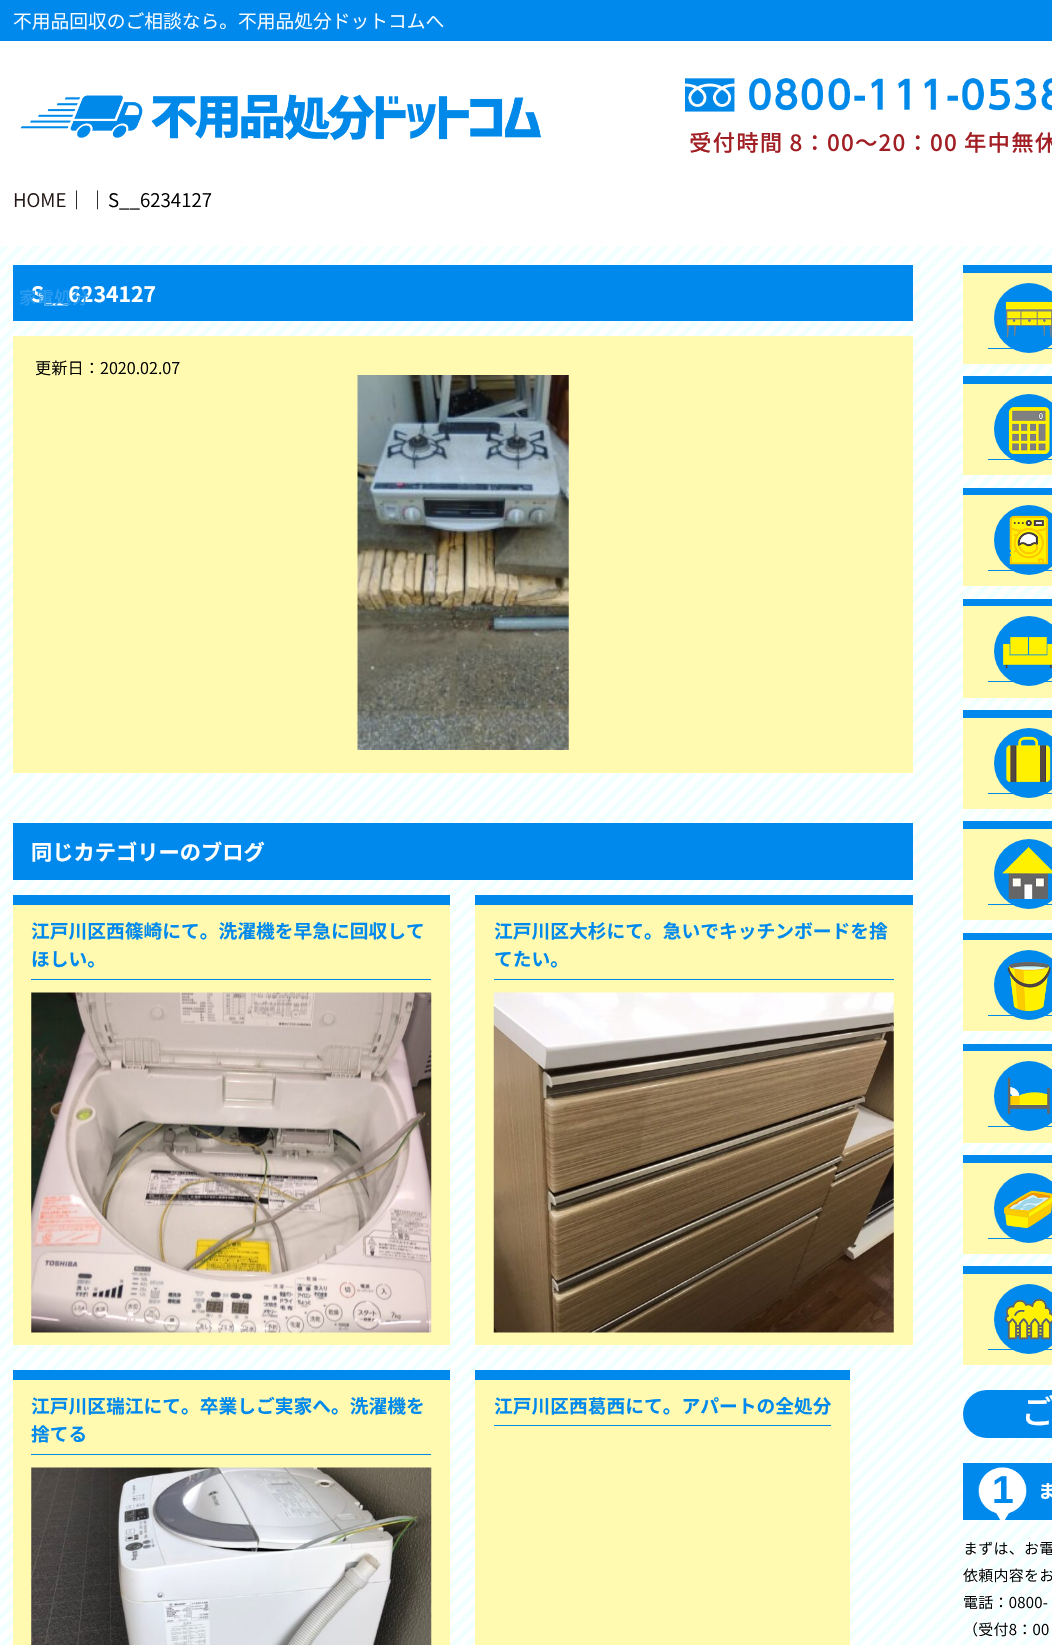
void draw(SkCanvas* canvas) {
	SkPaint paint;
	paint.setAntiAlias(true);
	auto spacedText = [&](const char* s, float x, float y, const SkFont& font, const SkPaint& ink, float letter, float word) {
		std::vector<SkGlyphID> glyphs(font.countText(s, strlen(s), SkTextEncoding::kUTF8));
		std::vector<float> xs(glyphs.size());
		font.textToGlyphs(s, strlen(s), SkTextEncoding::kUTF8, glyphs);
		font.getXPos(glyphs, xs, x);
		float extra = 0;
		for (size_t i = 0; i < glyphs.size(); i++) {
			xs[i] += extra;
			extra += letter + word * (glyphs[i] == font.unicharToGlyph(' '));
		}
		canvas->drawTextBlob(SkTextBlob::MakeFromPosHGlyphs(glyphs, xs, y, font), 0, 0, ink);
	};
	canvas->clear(0xffffffff);
	paint.setColor(0xff0089ed);
	canvas->drawRect(SkRect::MakeXYWH(0, 0, 1052, 41), paint);
	SkFont f1(fontMgr->matchFamilyStyle("Noto Sans JP", SkFontStyle(300, SkFontStyle::kNormal_Width, SkFontStyle::kUpright_Slant)), 18.75);
	f1.setSubpixel(true);
	paint.setColor(0xffffffff);
	canvas->drawString("不用品回収のご相談なら。不用品処分ドットコムへ", 13, 28, f1, paint);
	canvas->drawImageRect(SkImages::DeferredFromEncodedData(SkData::MakeFromFileName("img1.png")), SkRect::MakeXYWH(20, 94, 522, 47), SkSamplingOptions());
	canvas->drawImageRect(SkImages::DeferredFromEncodedData(SkData::MakeFromFileName("img2.png")), SkRect::MakeXYWH(685, 78, 367, 34), SkSamplingOptions());
	SkFont f2(fontMgr->matchFamilyStyle("Noto Sans JP", SkFontStyle(500, SkFontStyle::kNormal_Width, SkFontStyle::kUpright_Slant)), 22.5);
	f2.setSubpixel(true);
	paint.setColor(0xffa11f24);
	spacedText("受付時間 8：00〜20：00 年中無休", 689, 151, f2, paint, 1.1, 0);
	paint.setColor(0xff231815);
	canvas->drawString("HOME", 13, 207, f1, paint);
	paint.setColor(0xff000000);
	canvas->drawString("｜", 67, 207, f1, paint);
	canvas->drawString("｜", 88, 207, f1, paint);
	canvas->drawString("S__6234127", 108, 207, f1, paint);
	canvas->drawImageRect(SkImages::DeferredFromEncodedData(SkData::MakeFromFileName("img3.png")), SkRect::MakeXYWH(0, 246, 1052, 1399), SkSamplingOptions());
	paint.setColor(0xff0089ed);
	canvas->drawRect(SkRect::MakeXYWH(13, 265, 900, 56), paint);
	SkFont f3(fontMgr->matchFamilyStyle("Noto Sans JP", SkFontStyle::Bold()), 21.25);
	f3.setSubpixel(true);
	paint.setColor(0xffffffff);
	canvas->drawString("S__6234127", 31, 302, f3, paint);
	paint.setColor(0xfffffab0);
	canvas->drawRect(SkRect::MakeXYWH(13, 336, 900, 437), paint);
	SkFont f4(fontMgr->matchFamilyStyle("Noto Sans JP", SkFontStyle(300, SkFontStyle::kNormal_Width, SkFontStyle::kUpright_Slant)), 16.25);
	f4.setSubpixel(true);
	paint.setColor(0xff000000);
	canvas->drawString("更新日：2020.02.07", 35, 374, f4, paint);
	canvas->drawImageRect(SkImages::DeferredFromEncodedData(SkData::MakeFromFileName("img4.png")), SkRect::MakeXYWH(357, 375, 212, 375), SkSamplingOptions());
	paint.setColor(0xff0089ed);
	canvas->drawRect(SkRect::MakeXYWH(13, 823, 900, 57), paint);
	paint.setColor(0xffffffff);
	canvas->drawString("同じカテゴリーのブログ", 31, 860, f3, paint);
	paint.setColor(0xfffffab0);
	canvas->drawRect(SkRect::MakeXYWH(13, 905, 437, 440), paint);
	paint.setColor(0xff0089ed);
	canvas->drawRect(SkRect::MakeXYWH(13, 895, 437, 10), paint);
	canvas->drawRect(SkRect::MakeXYWH(31, 979, 400, 1), paint);
	SkFont f5(fontMgr->matchFamilyStyle("Noto Sans JP", SkFontStyle::Bold()), 18.75);
	f5.setSubpixel(true);
	canvas->drawString("江戸川区西篠崎にて。洗濯機を早急に回収して", 31, 938, f5, paint);
	canvas->drawString("ほしい。", 31, 966, f5, paint);
	canvas->drawImageRect(SkImages::DeferredFromEncodedData(SkData::MakeFromFileName("img5.png")), SkRect::MakeXYWH(31, 992, 401, 341), SkSamplingOptions());
	paint.setColor(0xfffffab0);
	canvas->drawRect(SkRect::MakeXYWH(475, 905, 438, 440), paint);
	paint.setColor(0xff0089ed);
	canvas->drawRect(SkRect::MakeXYWH(475, 895, 438, 10), paint);
	canvas->drawRect(SkRect::MakeXYWH(494, 979, 400, 1), paint);
	canvas->drawString("江戸川区大杉にて。急いでキッチンボードを捨", 494, 938, f5, paint);
	canvas->drawString("てたい。", 494, 966, f5, paint);
	canvas->drawImageRect(SkImages::DeferredFromEncodedData(SkData::MakeFromFileName("img6.png")), SkRect::MakeXYWH(493, 992, 401, 341), SkSamplingOptions());
	paint.setColor(0xfffffab0);
	canvas->drawRect(SkRect::MakeXYWH(13, 1380, 437, 265), paint);
	paint.setColor(0xff0089ed);
	canvas->drawRect(SkRect::MakeXYWH(13, 1370, 437, 10), paint);
	canvas->drawRect(SkRect::MakeXYWH(31, 1454, 400, 1), paint);
	canvas->drawString("江戸川区瑞江にて。卒業しご実家へ。洗濯機を", 31, 1413, f5, paint);
	canvas->drawString("捨てる", 31, 1441, f5, paint);
	canvas->drawImageRect(SkImages::DeferredFromEncodedData(SkData::MakeFromFileName("img7.png")), SkRect::MakeXYWH(31, 1467, 401, 178), SkSamplingOptions());
	paint.setColor(0xfffffab0);
	canvas->drawRect(SkRect::MakeXYWH(475, 1380, 375, 265), paint);
	paint.setColor(0xff0089ed);
	canvas->drawRect(SkRect::MakeXYWH(475, 1370, 375, 10), paint);
	canvas->drawRect(SkRect::MakeXYWH(494, 1425, 337, 1), paint);
	canvas->drawString("江戸川区西葛西にて。アパートの全処分", 494, 1413, f5, paint);
	paint.setColor(0xfffffab0);
	canvas->drawRect(SkRect::MakeXYWH(963, 273, 89, 91), paint);
	paint.setColor(0xff0089ed);
	canvas->drawRect(SkRect::MakeXYWH(963, 265, 89, 8), paint);
	canvas->drawRect(SkRect::MakeXYWH(988, 348, 64, 1), paint);
	canvas->drawCircle(1029, 318, 35, paint);
	canvas->drawImageRect(SkImages::DeferredFromEncodedData(SkData::MakeFromFileName("img8.png")), SkRect::MakeXYWH(1005, 301, 47, 37), SkSamplingOptions());
	paint.setColor(0xfffffab0);
	canvas->drawRect(SkRect::MakeXYWH(963, 384, 89, 91), paint);
	paint.setColor(0xff0089ed);
	canvas->drawRect(SkRect::MakeXYWH(963, 376, 89, 8), paint);
	canvas->drawRect(SkRect::MakeXYWH(988, 459, 64, 1), paint);
	canvas->drawCircle(1029, 429, 35, paint);
	canvas->drawImageRect(SkImages::DeferredFromEncodedData(SkData::MakeFromFileName("img9.png")), SkRect::MakeXYWH(1008, 407, 42, 47), SkSamplingOptions());
	paint.setColor(0xfffffab0);
	canvas->drawRect(SkRect::MakeXYWH(963, 495, 89, 91), paint);
	paint.setColor(0xff0089ed);
	canvas->drawRect(SkRect::MakeXYWH(963, 488, 89, 7), paint);
	canvas->drawRect(SkRect::MakeXYWH(988, 570, 64, 1), paint);
	canvas->drawCircle(1029, 540, 35, paint);
	canvas->drawImageRect(SkImages::DeferredFromEncodedData(SkData::MakeFromFileName("img10.png")), SkRect::MakeXYWH(1009, 515, 40, 50), SkSamplingOptions());
	paint.setColor(0xfffffab0);
	canvas->drawRect(SkRect::MakeXYWH(963, 606, 89, 92), paint);
	paint.setColor(0xff0089ed);
	canvas->drawRect(SkRect::MakeXYWH(963, 599, 89, 7), paint);
	canvas->drawRect(SkRect::MakeXYWH(988, 681, 64, 1), paint);
	canvas->drawCircle(1029, 651, 35, paint);
	canvas->drawImageRect(SkImages::DeferredFromEncodedData(SkData::MakeFromFileName("img11.png")), SkRect::MakeXYWH(1003, 637, 49, 32), SkSamplingOptions());
	paint.setColor(0xfffffab0);
	canvas->drawRect(SkRect::MakeXYWH(963, 718, 89, 91), paint);
	paint.setColor(0xff0089ed);
	canvas->drawRect(SkRect::MakeXYWH(963, 710, 89, 8), paint);
	canvas->drawRect(SkRect::MakeXYWH(988, 793, 64, 1), paint);
	canvas->drawCircle(1029, 763, 35, paint);
	canvas->drawImageRect(SkImages::DeferredFromEncodedData(SkData::MakeFromFileName("img12.png")), SkRect::MakeXYWH(1006, 736, 45, 46), SkSamplingOptions());
	paint.setColor(0xfffffab0);
	canvas->drawRect(SkRect::MakeXYWH(963, 829, 89, 91), paint);
	paint.setColor(0xff0089ed);
	canvas->drawRect(SkRect::MakeXYWH(963, 821, 89, 8), paint);
	canvas->drawRect(SkRect::MakeXYWH(988, 904, 64, 1), paint);
	canvas->drawCircle(1029, 874, 35, paint);
	canvas->drawImageRect(SkImages::DeferredFromEncodedData(SkData::MakeFromFileName("img13.png")), SkRect::MakeXYWH(1002, 847, 50, 52), SkSamplingOptions());
	paint.setColor(0xfffffab0);
	canvas->drawRect(SkRect::MakeXYWH(963, 940, 89, 91), paint);
	paint.setColor(0xff0089ed);
	canvas->drawRect(SkRect::MakeXYWH(963, 933, 89, 7), paint);
	canvas->drawRect(SkRect::MakeXYWH(988, 1015, 64, 1), paint);
	canvas->drawCircle(1029, 985, 35, paint);
	canvas->drawImageRect(SkImages::DeferredFromEncodedData(SkData::MakeFromFileName("img14.png")), SkRect::MakeXYWH(1007, 961, 44, 51), SkSamplingOptions());
	paint.setColor(0xfffffab0);
	canvas->drawRect(SkRect::MakeXYWH(963, 1051, 89, 92), paint);
	paint.setColor(0xff0089ed);
	canvas->drawRect(SkRect::MakeXYWH(963, 1044, 89, 7), paint);
	canvas->drawRect(SkRect::MakeXYWH(988, 1126, 64, 1), paint);
	canvas->drawCircle(1029, 1096, 35, paint);
	canvas->drawImageRect(SkImages::DeferredFromEncodedData(SkData::MakeFromFileName("img15.png")), SkRect::MakeXYWH(1007, 1077, 43, 37), SkSamplingOptions());
	paint.setColor(0xfffffab0);
	canvas->drawRect(SkRect::MakeXYWH(963, 1163, 89, 91), paint);
	paint.setColor(0xff0089ed);
	canvas->drawRect(SkRect::MakeXYWH(963, 1155, 89, 8), paint);
	canvas->drawRect(SkRect::MakeXYWH(988, 1238, 64, 1), paint);
	canvas->drawCircle(1029, 1208, 35, paint);
	canvas->drawImageRect(SkImages::DeferredFromEncodedData(SkData::MakeFromFileName("img16.png")), SkRect::MakeXYWH(1004, 1190, 48, 38), SkSamplingOptions());
	paint.setColor(0xfffffab0);
	canvas->drawRect(SkRect::MakeXYWH(963, 1274, 89, 91), paint);
	paint.setColor(0xff0089ed);
	canvas->drawRect(SkRect::MakeXYWH(963, 1266, 89, 8), paint);
	canvas->drawRect(SkRect::MakeXYWH(988, 1349, 64, 1), paint);
	canvas->drawCircle(1029, 1319, 35, paint);
	canvas->drawImageRect(SkImages::DeferredFromEncodedData(SkData::MakeFromFileName("img17.png")), SkRect::MakeXYWH(1005, 1298, 47, 42), SkSamplingOptions());
	canvas->drawRoundRect(SkRect::MakeXYWH(963, 1390, 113, 48), 24, 24, paint);
	SkFont f6(fontMgr->matchFamilyStyle("Noto Sans JP", SkFontStyle(500, SkFontStyle::kNormal_Width, SkFontStyle::kUpright_Slant)), 34);
	f6.setSubpixel(true);
	paint.setColor(0xffffffff);
	spacedText("ご", 1021, 1424, f6, paint, 5, 0);
	paint.setColor(0xff0089ed);
	canvas->drawRect(SkRect::MakeXYWH(963, 1463, 89, 57), paint);
	canvas->drawImageRect(SkImages::DeferredFromEncodedData(SkData::MakeFromFileName("img18.png")), SkRect::MakeXYWH(978, 1467, 49, 53), SkSamplingOptions());
	SkFont f7(fontMgr->matchFamilyStyle("Liberation Sans", SkFontStyle::Bold()), 39);
	f7.setSubpixel(true);
	canvas->drawString("1", 992, 1503, f7, paint);
	paint.setColor(0xffffffff);
	canvas->drawString("ま", 1038, 1498, f5, paint);
	SkFont f8(fontMgr->matchFamilyStyle("Noto Sans JP", SkFontStyle(300, SkFontStyle::kNormal_Width, SkFontStyle::kUpright_Slant)), 15);
	f8.setSubpixel(true);
	paint.setColor(0xff000000);
	spacedText("まずは、お電", 963, 1554, f8, paint, 0.25, 0);
	spacedText("依頼内容をお", 963, 1581, f8, paint, 0.25, 0);
	spacedText("電話：0800-", 963, 1608, f8, paint, 0.25, 0);
	spacedText("（受付8：00", 963, 1635, f8, paint, 0.25, 0);
	SkFont f9(fontMgr->matchFamilyStyle("Noto Sans JP", SkFontStyle(500, SkFontStyle::kNormal_Width, SkFontStyle::kUpright_Slant)), 17.5);
	f9.setSubpixel(true);
	paint.setColor(0xff2c9df0);
	canvas->drawString("家電処分", 19, 304, f9, paint);
}
